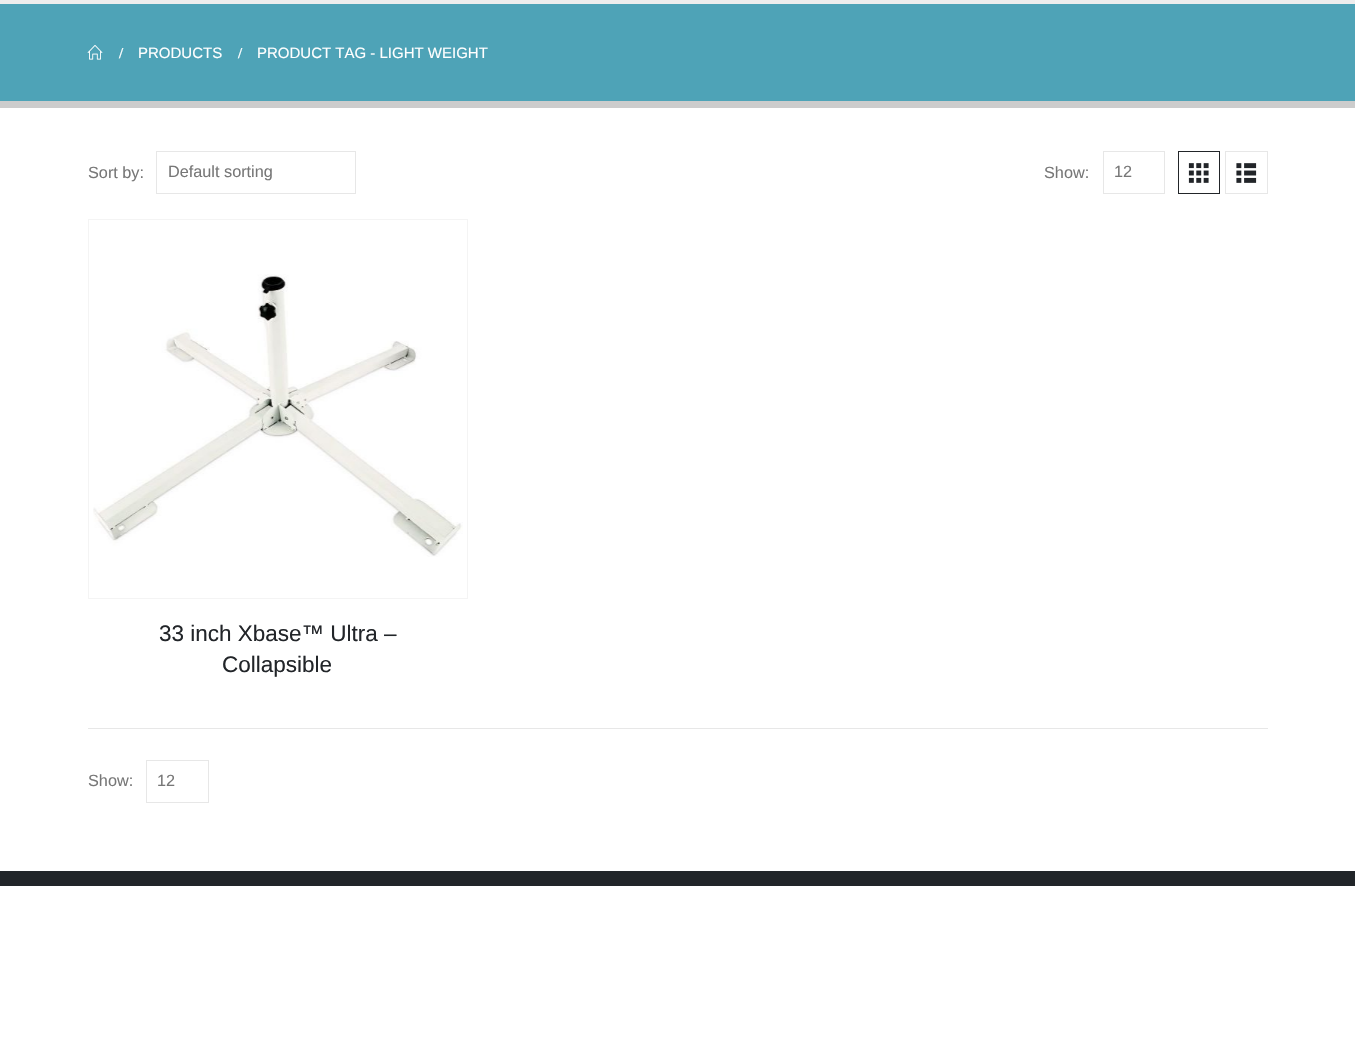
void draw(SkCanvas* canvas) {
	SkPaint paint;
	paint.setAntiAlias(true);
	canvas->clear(0xffffffff);
	paint.setColor(0xffededed);
	canvas->drawRect(SkRect::MakeXYWH(0, 0, 1355, 4), paint);
	paint.setColor(0xff4ea3b7);
	canvas->drawRect(SkRect::MakeXYWH(0, 4, 1355, 97), paint);
	paint.setColor(0xffcccccc);
	canvas->drawRect(SkRect::MakeXYWH(0, 101, 1355, 7), paint);
	canvas->drawImageRect(SkImages::DeferredFromEncodedData(SkData::MakeFromFileName("img1.png")), SkRect::MakeXYWH(87, 45, 16, 15), SkSamplingOptions());
	SkFont f1(fontMgr->matchFamilyStyle("Liberation Serif", SkFontStyle::Bold()), 15);
	f1.setSubpixel(true);
	paint.setColor(0xffffffff);
	canvas->drawString("/", 119, 58, f1, paint);
	SkFont f2(fontMgr->matchFamilyStyle("Liberation Sans", SkFontStyle::Normal()), 15);
	f2.setSubpixel(true);
	canvas->drawString("PRODUCTS", 138, 58, f2, paint);
	canvas->drawString("/", 238, 58, f1, paint);
	canvas->drawString("PRODUCT TAG - LIGHT WEIGHT", 257, 58, f2, paint);
	SkFont f3(fontMgr->matchFamilyStyle("Liberation Sans", SkFontStyle::Normal()), 16.25);
	f3.setSubpixel(true);
	paint.setColor(0xff777777);
	canvas->drawString("Sort by:", 88, 178, f3, paint);
	paint.setStroke(true);
	paint.setStrokeWidth(1);
	paint.setColor(0xffe7e7e7);
	canvas->drawRect(SkRect::MakeXYWH(156.5, 151.5, 199, 42), paint);
	paint.setStroke(false);
	paint.setColor(0xff777777);
	canvas->drawString("Default sorting", 168, 177, f3, paint);
	canvas->drawString("Show:", 1044, 178, f3, paint);
	paint.setStroke(true);
	paint.setColor(0xffe7e7e7);
	canvas->drawRect(SkRect::MakeXYWH(1103.5, 151.5, 61, 42), paint);
	paint.setStroke(false);
	paint.setColor(0xff777777);
	canvas->drawString("12", 1114, 177, f3, paint);
	paint.setStroke(true);
	paint.setColor(0xff222529);
	canvas->drawRect(SkRect::MakeXYWH(1178.5, 151.5, 41, 42), paint);
	canvas->drawImageRect(SkImages::DeferredFromEncodedData(SkData::MakeFromFileName("img2.png")), SkRect::MakeXYWH(1188, 163, 21, 20), SkSamplingOptions());
	paint.setColor(0xffe7e7e7);
	canvas->drawRect(SkRect::MakeXYWH(1225.5, 151.5, 42, 42), paint);
	canvas->drawImageRect(SkImages::DeferredFromEncodedData(SkData::MakeFromFileName("img3.png")), SkRect::MakeXYWH(1236, 163, 21, 20), SkSamplingOptions());
	paint.setColor(0xfff4f4f4);
	canvas->drawRect(SkRect::MakeXYWH(88.5, 219.5, 379, 379), paint);
	canvas->drawImageRect(SkImages::DeferredFromEncodedData(SkData::MakeFromFileName("img4.png")), SkRect::MakeXYWH(93, 274, 370, 283), SkSamplingOptions());
	SkFont f4(fontMgr->matchFamilyStyle("Liberation Sans", SkFontStyle::Normal()), 22.5);
	f4.setSubpixel(true);
	paint.setStroke(false);
	paint.setColor(0xff222529);
	canvas->drawString("33 inch Xbase™ Ultra –", 159, 641, f4, paint);
	canvas->drawString("Collapsible", 222, 672, f4, paint);
	paint.setColor(0xffe7e7e7);
	canvas->drawRect(SkRect::MakeXYWH(88, 728, 1180, 1), paint);
	paint.setColor(0xff777777);
	canvas->drawString("Show:", 88, 786, f3, paint);
	paint.setStroke(true);
	paint.setColor(0xffe7e7e7);
	canvas->drawRect(SkRect::MakeXYWH(146.5, 760.5, 62, 42), paint);
	paint.setStroke(false);
	paint.setColor(0xff777777);
	canvas->drawString("12", 157, 786, f3, paint);
	paint.setColor(0xff212529);
	canvas->drawRect(SkRect::MakeXYWH(0, 871, 1355, 15), paint);
}
